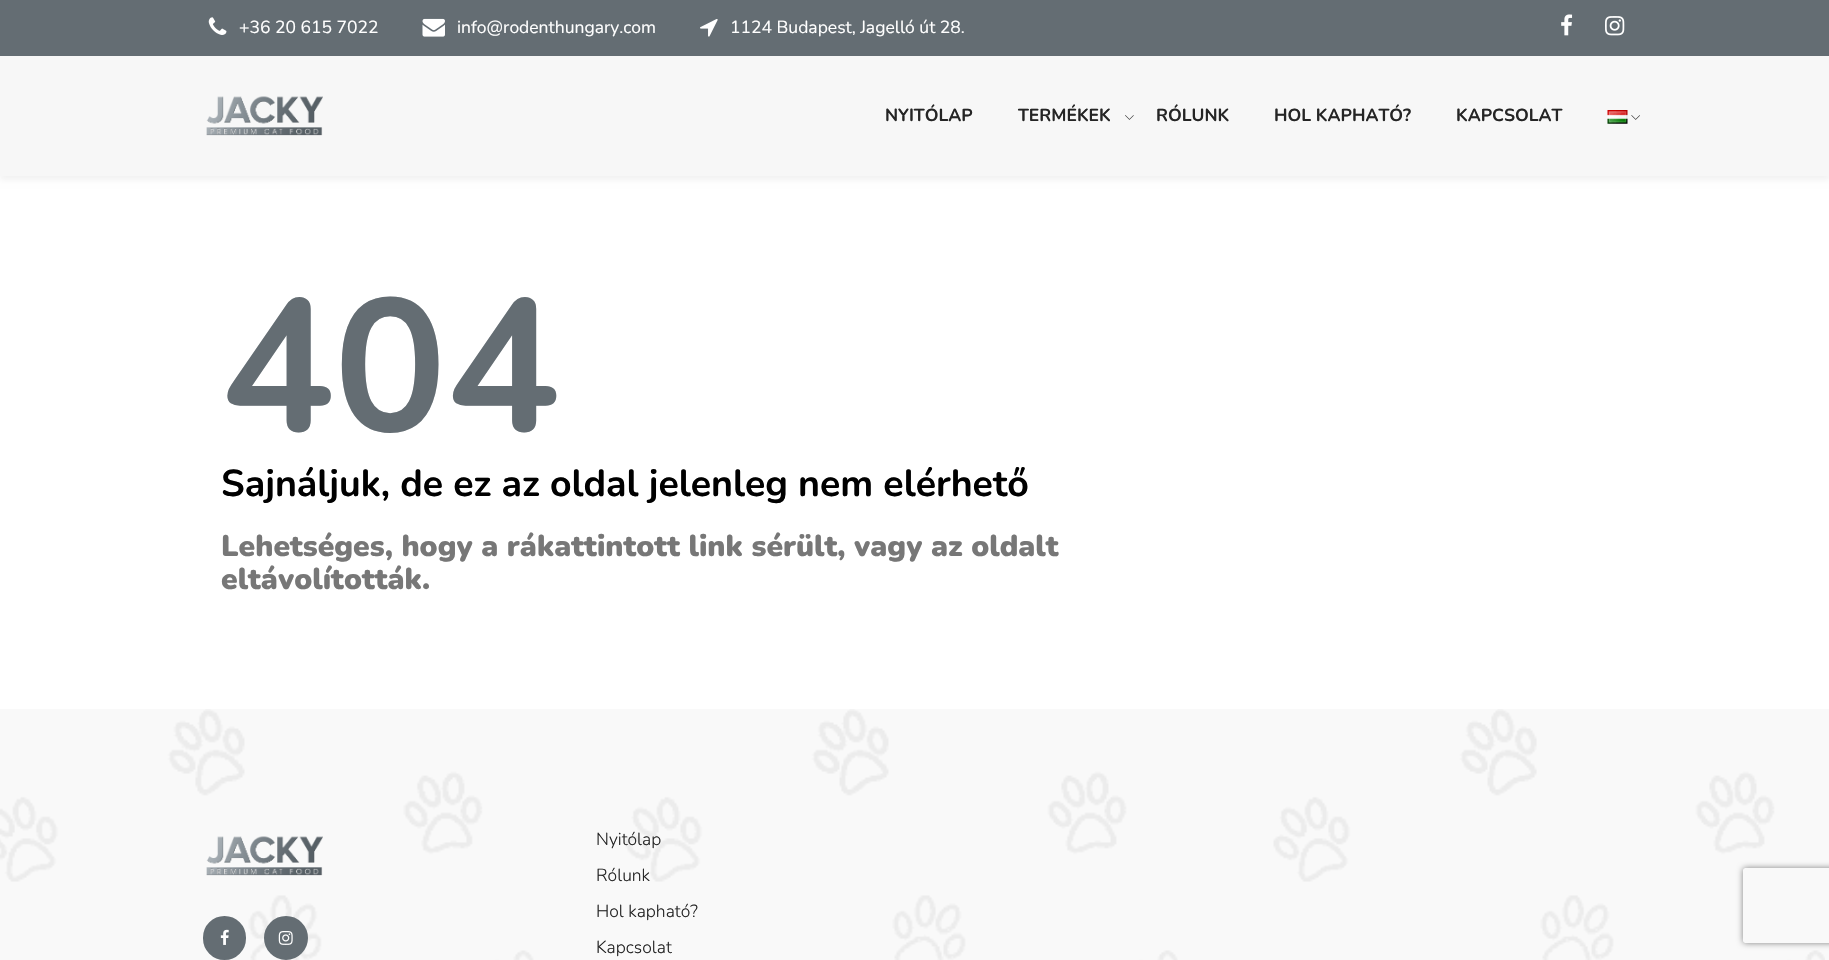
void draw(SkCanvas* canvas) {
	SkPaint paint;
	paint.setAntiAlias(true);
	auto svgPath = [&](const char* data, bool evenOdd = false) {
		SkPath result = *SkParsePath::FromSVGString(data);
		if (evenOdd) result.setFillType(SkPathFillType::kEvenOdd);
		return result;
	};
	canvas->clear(0xffffffff);
	paint.setColor(0xff646d73);
	canvas->drawRect(SkRect::MakeXYWH(0, 0, 1829, 56), paint);
	canvas->drawImageRect(SkImages::DeferredFromEncodedData(SkData::MakeFromFileName("img1.png")), SkRect::MakeXYWH(208, 17, 19, 18), SkSamplingOptions());
	SkFont f1(fontMgr->matchFamilyStyle("Nunito", SkFontStyle(200, SkFontStyle::kNormal_Width, SkFontStyle::kUpright_Slant)), 17.5);
	f1.setSubpixel(true);
	paint.setColor(0xffffffff);
	canvas->drawString("+36 20 615 7022", 239, 33, f1, paint);
	canvas->drawImageRect(SkImages::DeferredFromEncodedData(SkData::MakeFromFileName("img2.png")), SkRect::MakeXYWH(422, 18, 23, 19), SkSamplingOptions());
	canvas->drawString("info@rodenthungary.com", 457, 33, f1, paint);
	canvas->drawImageRect(SkImages::DeferredFromEncodedData(SkData::MakeFromFileName("img3.png")), SkRect::MakeXYWH(700, 19, 18, 18), SkSamplingOptions());
	canvas->drawString("1124 Budapest, Jagelló út 28.", 730, 33, f1, paint);
	canvas->drawImageRect(SkImages::DeferredFromEncodedData(SkData::MakeFromFileName("img4.png")), SkRect::MakeXYWH(1561, 14, 12, 22), SkSamplingOptions());
	canvas->drawImageRect(SkImages::DeferredFromEncodedData(SkData::MakeFromFileName("img5.png")), SkRect::MakeXYWH(1605, 16, 20, 20), SkSamplingOptions());
	paint.setColor(0x0d000000);
	paint.setMaskFilter(SkMaskFilter::MakeBlur(kNormal_SkBlurStyle, 3));
	canvas->drawRect(SkRect::MakeXYWH(0, 60, 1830, 120), paint);
	paint.setMaskFilter(nullptr);
	paint.setColor(0xfff7f7f7);
	canvas->drawRect(SkRect::MakeXYWH(0, 56, 1829, 120), paint);
	canvas->drawImageRect(SkImages::DeferredFromEncodedData(SkData::MakeFromFileName("img6.png")), SkRect::MakeXYWH(206, 96, 117, 40), SkSamplingOptions());
	SkFont f2(fontMgr->matchFamilyStyle("Nunito", SkFontStyle::Bold()), 17.5);
	f2.setSubpixel(true);
	paint.setColor(0xff252525);
	canvas->drawString("NYITÓLAP", 885, 121, f2, paint);
	canvas->drawString("TERMÉKEK", 1018, 121, f2, paint);
	canvas->drawImageRect(SkImages::DeferredFromEncodedData(SkData::MakeFromFileName("img7.png")), SkRect::MakeXYWH(1125, 115, 9, 5), SkSamplingOptions());
	canvas->drawString("RÓLUNK", 1156, 121, f2, paint);
	canvas->drawString("HOL KAPHATÓ?", 1274, 121, f2, paint);
	canvas->drawString("KAPCSOLAT", 1456, 121, f2, paint);
	canvas->drawImageRect(SkImages::DeferredFromEncodedData(SkData::MakeFromFileName("img8.png")), SkRect::MakeXYWH(1607, 110, 21, 14), SkSamplingOptions());
	canvas->drawImageRect(SkImages::DeferredFromEncodedData(SkData::MakeFromFileName("img9.png")), SkRect::MakeXYWH(1631, 115, 9, 5), SkSamplingOptions());
	SkFont f3(fontMgr->matchFamilyStyle("Nunito", SkFontStyle::Bold()), 188);
	f3.setSubpixel(true);
	paint.setColor(0xff646d73);
	canvas->drawString("404", 221, 431, f3, paint);
	SkFont f4(fontMgr->matchFamilyStyle("Nunito", SkFontStyle::Bold()), 37.5);
	f4.setSubpixel(true);
	paint.setColor(0xff000000);
	canvas->drawString("Sajnáljuk, de ez az oldal jelenleg nem elérhető", 221, 496, f4, paint);
	SkFont f5(fontMgr->matchFamilyStyle("Nunito", SkFontStyle(900, SkFontStyle::kNormal_Width, SkFontStyle::kUpright_Slant)), 30);
	f5.setSubpixel(true);
	paint.setColor(0xff777777);
	canvas->drawString("Lehetséges, hogy a rákattintott link sérült, vagy az oldalt", 221, 556, f5, paint);
	canvas->drawString("eltávolították.", 221, 589, f5, paint);
	paint.setColor(0xfff9f9f9);
	canvas->drawRect(SkRect::MakeXYWH(0, 709, 1829, 251), paint);
	canvas->drawImageRect(SkImages::DeferredFromEncodedData(SkData::MakeFromFileName("img10.png")), SkRect::MakeXYWH(0, 709, 1825, 251), SkSamplingOptions());
	canvas->drawImageRect(SkImages::DeferredFromEncodedData(SkData::MakeFromFileName("img11.png")), SkRect::MakeXYWH(206, 836, 117, 40), SkSamplingOptions());
	paint.setColor(0xff646d73);
	canvas->drawRoundRect(SkRect::MakeXYWH(204.5, 917.5, 40, 41), 20, 20, paint);
	paint.setStroke(true);
	paint.setStrokeWidth(3);
	canvas->drawRoundRect(SkRect::MakeXYWH(204.5, 917.5, 40, 41), 20, 20, paint);
	canvas->drawImageRect(SkImages::DeferredFromEncodedData(SkData::MakeFromFileName("img12.png")), SkRect::MakeXYWH(220, 929, 9, 16), SkSamplingOptions());
	paint.setStroke(false);
	canvas->drawCircle(286, 938, 20.5, paint);
	paint.setStroke(true);
	canvas->drawCircle(286, 938, 20.5, paint);
	canvas->drawImageRect(SkImages::DeferredFromEncodedData(SkData::MakeFromFileName("img13.png")), SkRect::MakeXYWH(278, 931, 15, 14), SkSamplingOptions());
	SkFont f6(fontMgr->matchFamilyStyle("Nunito", SkFontStyle(300, SkFontStyle::kNormal_Width, SkFontStyle::kUpright_Slant)), 17.5);
	f6.setSubpixel(true);
	paint.setStroke(false);
	paint.setColor(0xff252525);
	canvas->drawString("Nyitólap", 596, 845, f6, paint);
	canvas->drawString("Rólunk", 596, 881, f6, paint);
	canvas->drawString("Hol kapható?", 596, 917, f6, paint);
	canvas->drawString("Kapcsolat", 596, 953, f6, paint);
	canvas->save();
	canvas->clipPath(svgPath("M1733 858H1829V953H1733ZM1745.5 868H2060.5C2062 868 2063 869 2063 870.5V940.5C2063 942 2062 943 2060.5 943H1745.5C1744 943 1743 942 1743 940.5V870.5C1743 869 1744 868 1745.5 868Z", true), true);
	paint.setColor(0xff808080);
	paint.setMaskFilter(SkMaskFilter::MakeBlur(kNormal_SkBlurStyle, 3));
	canvas->drawRoundRect(SkRect::MakeXYWH(1743, 868, 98, 75), 2.5, 2.5, paint);
	paint.setMaskFilter(nullptr);
	canvas->restore();
}
